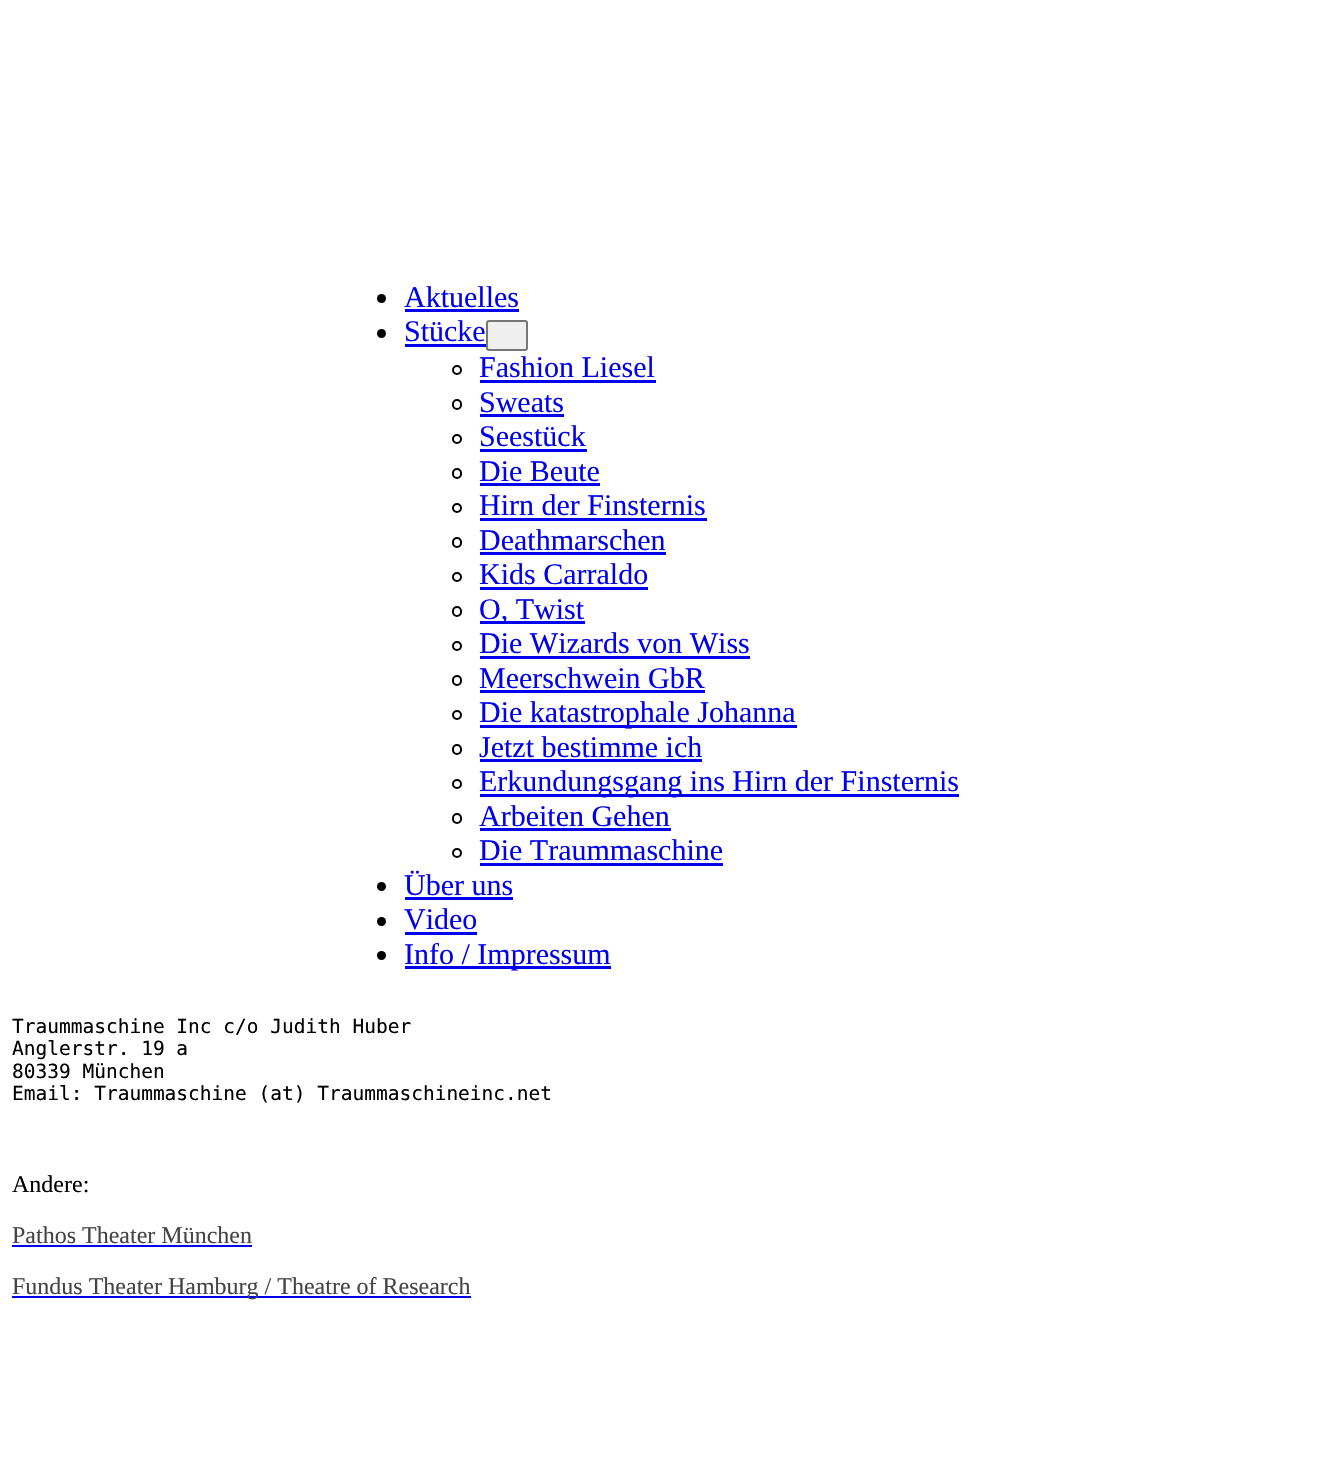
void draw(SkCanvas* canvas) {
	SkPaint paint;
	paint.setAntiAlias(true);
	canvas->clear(0xffffffff);
	paint.setColor(0xff000000);
	canvas->drawCircle(381.5, 298.5, 4.5, paint);
	SkFont f1(fontMgr->matchFamilyStyle("Liberation Serif", SkFontStyle::Normal()), 30);
	f1.setSubpixel(true);
	paint.setColor(0xff0000ee);
	canvas->drawString("Aktuelles", 404, 307, f1, paint);
	canvas->drawRect(SkRect::MakeXYWH(405, 309, 114, 3), paint);
	paint.setColor(0xff000000);
	canvas->drawCircle(381.5, 333.5, 4.5, paint);
	paint.setColor(0xff0000ee);
	canvas->drawString("Stücke", 404, 341, f1, paint);
	canvas->drawRect(SkRect::MakeXYWH(405, 344, 81, 3), paint);
	paint.setColor(0xffefefef);
	canvas->drawRoundRect(SkRect::MakeXYWH(487, 321, 40, 29), 2, 2, paint);
	paint.setStroke(true);
	paint.setStrokeWidth(2);
	paint.setColor(0xff767676);
	canvas->drawRoundRect(SkRect::MakeXYWH(487, 321, 40, 29), 2, 2, paint);
	paint.setColor(0xff000000);
	canvas->drawCircle(457, 370, 4, paint);
	paint.setStroke(false);
	paint.setColor(0xff0000ee);
	canvas->drawString("Fashion Liesel", 479, 377, f1, paint);
	canvas->drawRect(SkRect::MakeXYWH(480, 380, 176, 3), paint);
	paint.setStroke(true);
	paint.setColor(0xff000000);
	canvas->drawRoundRect(SkRect::MakeXYWH(453, 400, 8, 9), 4, 4, paint);
	paint.setStroke(false);
	paint.setColor(0xff0000ee);
	canvas->drawString("Sweats", 479, 412, f1, paint);
	canvas->drawRect(SkRect::MakeXYWH(480, 414, 84, 3), paint);
	paint.setStroke(true);
	paint.setColor(0xff000000);
	canvas->drawCircle(457, 439, 4, paint);
	paint.setStroke(false);
	paint.setColor(0xff0000ee);
	canvas->drawString("Seestück", 479, 446, f1, paint);
	canvas->drawRect(SkRect::MakeXYWH(480, 449, 107, 3), paint);
	paint.setStroke(true);
	paint.setColor(0xff000000);
	canvas->drawRoundRect(SkRect::MakeXYWH(453, 469, 8, 9), 4, 4, paint);
	paint.setStroke(false);
	paint.setColor(0xff0000ee);
	canvas->drawString("Die Beute", 479, 481, f1, paint);
	canvas->drawRect(SkRect::MakeXYWH(480, 483, 120, 3), paint);
	paint.setStroke(true);
	paint.setColor(0xff000000);
	canvas->drawCircle(457, 508, 4, paint);
	paint.setStroke(false);
	paint.setColor(0xff0000ee);
	canvas->drawString("Hirn der Finsternis", 479, 515, f1, paint);
	canvas->drawRect(SkRect::MakeXYWH(480, 518, 227, 3), paint);
	paint.setStroke(true);
	paint.setColor(0xff000000);
	canvas->drawRoundRect(SkRect::MakeXYWH(453, 538, 8, 9), 4, 4, paint);
	paint.setStroke(false);
	paint.setColor(0xff0000ee);
	canvas->drawString("Deathmarschen", 479, 550, f1, paint);
	canvas->drawRect(SkRect::MakeXYWH(480, 552, 186, 3), paint);
	paint.setStroke(true);
	paint.setColor(0xff000000);
	canvas->drawCircle(457, 577, 4, paint);
	paint.setStroke(false);
	paint.setColor(0xff0000ee);
	canvas->drawString("Kids Carraldo", 479, 584, f1, paint);
	canvas->drawRect(SkRect::MakeXYWH(480, 587, 168, 3), paint);
	paint.setStroke(true);
	paint.setColor(0xff000000);
	canvas->drawRoundRect(SkRect::MakeXYWH(453, 607, 8, 9), 4, 4, paint);
	paint.setStroke(false);
	paint.setColor(0xff0000ee);
	canvas->drawRect(SkRect::MakeXYWH(480, 621, 105, 3), paint);
	canvas->drawString("O, Twist", 479, 619, f1, paint);
	paint.setStroke(true);
	paint.setColor(0xff000000);
	canvas->drawCircle(457, 646, 4, paint);
	paint.setStroke(false);
	paint.setColor(0xff0000ee);
	canvas->drawString("Die Wizards von Wiss", 479, 653, f1, paint);
	canvas->drawRect(SkRect::MakeXYWH(480, 656, 270, 3), paint);
	paint.setStroke(true);
	paint.setColor(0xff000000);
	canvas->drawRoundRect(SkRect::MakeXYWH(453, 676, 8, 9), 4, 4, paint);
	paint.setStroke(false);
	paint.setColor(0xff0000ee);
	canvas->drawString("Meerschwein GbR", 479, 688, f1, paint);
	canvas->drawRect(SkRect::MakeXYWH(480, 690, 225, 3), paint);
	paint.setStroke(true);
	paint.setColor(0xff000000);
	canvas->drawCircle(457, 715, 4, paint);
	paint.setStroke(false);
	paint.setColor(0xff0000ee);
	canvas->drawRect(SkRect::MakeXYWH(480, 725, 317, 3), paint);
	canvas->drawString("Die katastrophale Johanna", 479, 722, f1, paint);
	paint.setStroke(true);
	paint.setColor(0xff000000);
	canvas->drawRoundRect(SkRect::MakeXYWH(453, 745, 8, 9), 4, 4, paint);
	paint.setStroke(false);
	paint.setColor(0xff0000ee);
	canvas->drawString("Jetzt bestimme ich", 479, 757, f1, paint);
	canvas->drawRect(SkRect::MakeXYWH(480, 759, 222, 3), paint);
	paint.setStroke(true);
	paint.setColor(0xff000000);
	canvas->drawCircle(457, 784, 4, paint);
	paint.setStroke(false);
	paint.setColor(0xff0000ee);
	canvas->drawRect(SkRect::MakeXYWH(480, 794, 479, 3), paint);
	canvas->drawString("Erkundungsgang ins Hirn der Finsternis", 479, 791, f1, paint);
	paint.setStroke(true);
	paint.setColor(0xff000000);
	canvas->drawRoundRect(SkRect::MakeXYWH(453, 814, 8, 9), 4, 4, paint);
	paint.setStroke(false);
	paint.setColor(0xff0000ee);
	canvas->drawString("Arbeiten Gehen", 479, 826, f1, paint);
	canvas->drawRect(SkRect::MakeXYWH(480, 828, 191, 3), paint);
	paint.setStroke(true);
	paint.setColor(0xff000000);
	canvas->drawCircle(457, 853, 4, paint);
	paint.setStroke(false);
	paint.setColor(0xff0000ee);
	canvas->drawString("Die Traummaschine", 479, 860, f1, paint);
	canvas->drawRect(SkRect::MakeXYWH(480, 863, 243, 3), paint);
	paint.setColor(0xff000000);
	canvas->drawCircle(381.5, 886.5, 4.5, paint);
	paint.setColor(0xff0000ee);
	canvas->drawString("Über uns", 404, 895, f1, paint);
	canvas->drawRect(SkRect::MakeXYWH(405, 897, 108, 3), paint);
	paint.setColor(0xff000000);
	canvas->drawCircle(381.5, 921.5, 4.5, paint);
	paint.setColor(0xff0000ee);
	canvas->drawString("Video", 404, 929, f1, paint);
	canvas->drawRect(SkRect::MakeXYWH(405, 932, 72, 3), paint);
	paint.setColor(0xff000000);
	canvas->drawCircle(381.5, 955.5, 4.5, paint);
	paint.setColor(0xff0000ee);
	canvas->drawRect(SkRect::MakeXYWH(405, 966, 206, 3), paint);
	canvas->drawString("Info / Impressum", 404, 964, f1, paint);
	SkFont f2(fontMgr->matchFamilyStyle("DejaVu Sans Mono", SkFontStyle::Normal()), 19.5);
	f2.setSubpixel(true);
	paint.setColor(0xff000000);
	canvas->drawString("Traummaschine Inc c/o Judith Huber", 12, 1033, f2, paint);
	canvas->drawString("Anglerstr. 19 a", 12, 1055, f2, paint);
	canvas->drawString("80339 München", 12, 1078, f2, paint);
	canvas->drawString("Email: Traummaschine (at) Traummaschineinc.net", 12, 1100, f2, paint);
	SkFont f3(fontMgr->matchFamilyStyle("Liberation Serif", SkFontStyle::Normal()), 24);
	f3.setSubpixel(true);
	canvas->drawString("Andere:", 12, 1192, f3, paint);
	paint.setColor(0xff444444);
	canvas->drawString("Pathos Theater München", 12, 1243, f3, paint);
	paint.setColor(0xff0000ee);
	canvas->drawRect(SkRect::MakeXYWH(12, 1245, 240, 2), paint);
	canvas->drawRect(SkRect::MakeXYWH(12, 1296, 459, 2), paint);
	paint.setColor(0xff444444);
	canvas->drawString("Fundus Theater Hamburg / Theatre of Research", 12, 1294, f3, paint);
}
